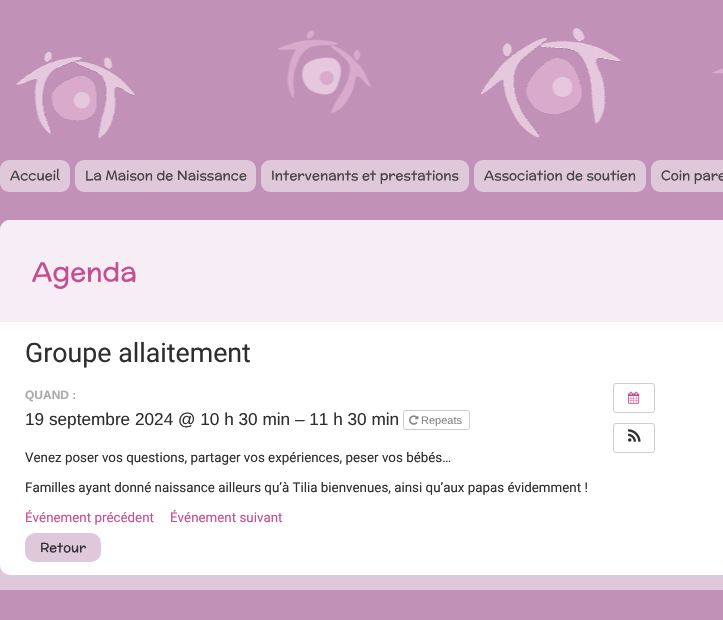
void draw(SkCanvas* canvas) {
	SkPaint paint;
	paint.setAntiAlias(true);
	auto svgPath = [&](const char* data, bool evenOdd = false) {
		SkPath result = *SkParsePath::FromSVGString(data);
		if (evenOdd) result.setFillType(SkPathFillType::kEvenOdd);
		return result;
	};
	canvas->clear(0xffe0c8db);
	canvas->drawImageRect(SkImages::DeferredFromEncodedData(SkData::MakeFromFileName("img1.png")), SkRect::MakeXYWH(0, 0, 723, 230), SkSamplingOptions());
	paint.setColor(0xffe0c8db);
	canvas->drawRoundRect(SkRect::MakeXYWH(0, 160, 70, 32), 9, 9, paint);
	SkFont f1(fontMgr->matchFamilyStyle("McLaren", SkFontStyle::Normal()), 13.35);
	f1.setSubpixel(true);
	paint.setColor(0xff444444);
	canvas->drawString("Accueil", 10, 180, f1, paint);
	paint.setColor(0xffe0c8db);
	canvas->drawRoundRect(SkRect::MakeXYWH(75, 160, 181, 32), 9, 9, paint);
	paint.setColor(0xff444444);
	canvas->drawString("La Maison de Naissance", 85, 180, f1, paint);
	paint.setColor(0xffe0c8db);
	canvas->drawRoundRect(SkRect::MakeXYWH(261, 160, 208, 32), 9, 9, paint);
	paint.setColor(0xff444444);
	canvas->drawString("Intervenants et prestations", 271, 180, f1, paint);
	paint.setColor(0xffe0c8db);
	canvas->drawRoundRect(SkRect::MakeXYWH(474, 160, 172, 32), 9, 9, paint);
	paint.setColor(0xff444444);
	canvas->drawString("Association de soutien", 484, 180, f1, paint);
	paint.setColor(0xffe0c8db);
	canvas->drawRoundRect(SkRect::MakeXYWH(651, 160, 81, 32), 9, 9, paint);
	paint.setColor(0xff444444);
	canvas->drawString("Coin pare", 661, 180, f1, paint);
	paint.setColor(0xffffffff);
	canvas->drawRoundRect(SkRect::MakeXYWH(0, 220, 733, 355), 10, 10, paint);
	paint.setColor(0xfff7edf5);
	canvas->drawPath(svgPath("M10 220H723C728.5 220 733 224.5 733 230V322H0V230C0 224.5 4.5 220 10 220Z"), paint);
	SkFont f2(fontMgr->matchFamilyStyle("McLaren", SkFontStyle::Normal()), 26.75);
	f2.setSubpixel(true);
	paint.setColor(0xffc64d90);
	canvas->drawString("Agenda", 32, 281, f2, paint);
	SkFont f3(fontMgr->matchFamilyStyle("Roboto", SkFontStyle::Normal()), 26.75);
	f3.setSubpixel(true);
	paint.setColor(0xff2e2e2e);
	canvas->drawString("Groupe allaitement", 25, 362, f3, paint);
	SkFont f4(fontMgr->matchFamilyStyle("Liberation Sans", SkFontStyle::Bold()), 12);
	f4.setSubpixel(true);
	paint.setColor(0xffaaaaaa);
	canvas->drawString("QUAND :", 25, 399, f4, paint);
	SkFont f5(fontMgr->matchFamilyStyle("Liberation Sans", SkFontStyle::Normal()), 17.2);
	f5.setSubpixel(true);
	paint.setColor(0xff2e2e2e);
	canvas->drawString("19 septembre 2024 @ 10 h 30 min – 11 h 30 min", 25, 425, f5, paint);
	paint.setStroke(true);
	paint.setStrokeWidth(1);
	paint.setColor(0xffcccccc);
	canvas->drawRoundRect(SkRect::MakeXYWH(403.5, 410.5, 66, 19), 2.5, 2.5, paint);
	canvas->drawImageRect(SkImages::DeferredFromEncodedData(SkData::MakeFromFileName("img2.png")), SkRect::MakeXYWH(409, 415, 10, 10), SkSamplingOptions());
	SkFont f6(fontMgr->matchFamilyStyle("Liberation Sans", SkFontStyle::Normal()), 11);
	f6.setSubpixel(true);
	paint.setStroke(false);
	paint.setColor(0xff858585);
	canvas->drawString("Repeats", 421, 424, f6, paint);
	paint.setStroke(true);
	paint.setColor(0xffcccccc);
	canvas->drawRoundRect(SkRect::MakeXYWH(613.5, 383.5, 41, 29), 2.5, 2.5, paint);
	canvas->drawImageRect(SkImages::DeferredFromEncodedData(SkData::MakeFromFileName("img3.png")), SkRect::MakeXYWH(628, 391, 12, 13), SkSamplingOptions());
	canvas->drawRoundRect(SkRect::MakeXYWH(613.5, 423.5, 41, 29), 2.5, 2.5, paint);
	canvas->drawImageRect(SkImages::DeferredFromEncodedData(SkData::MakeFromFileName("img4.png")), SkRect::MakeXYWH(628, 429, 13, 13), SkSamplingOptions());
	SkFont f7(fontMgr->matchFamilyStyle("Roboto", SkFontStyle::Normal()), 13.35);
	f7.setSubpixel(true);
	paint.setStroke(false);
	paint.setColor(0xff2e2e2e);
	canvas->drawString("Venez poser vos questions, partager vos expériences, peser vos bébés…", 25, 462, f7, paint);
	canvas->drawString("Familles ayant donné naissance ailleurs qu’à Tilia bienvenues, ainsi qu’aux papas évidemment !", 25, 492, f7, paint);
	paint.setColor(0xffc64d90);
	canvas->drawString("Événement précédent", 25, 522, f7, paint);
	canvas->drawString("Événement suivant", 170, 522, f7, paint);
	paint.setColor(0xffe0c8db);
	canvas->drawRoundRect(SkRect::MakeXYWH(25, 533, 76, 29), 10, 10, paint);
	SkFont f8(fontMgr->matchFamilyStyle("McLaren", SkFontStyle::Normal()), 13);
	f8.setSubpixel(true);
	paint.setColor(0xff2e2e2e);
	canvas->drawString("Retour", 40, 552, f8, paint);
	paint.setColor(0xffc191b7);
	canvas->drawRect(SkRect::MakeXYWH(0, 590, 723, 30), paint);
}
